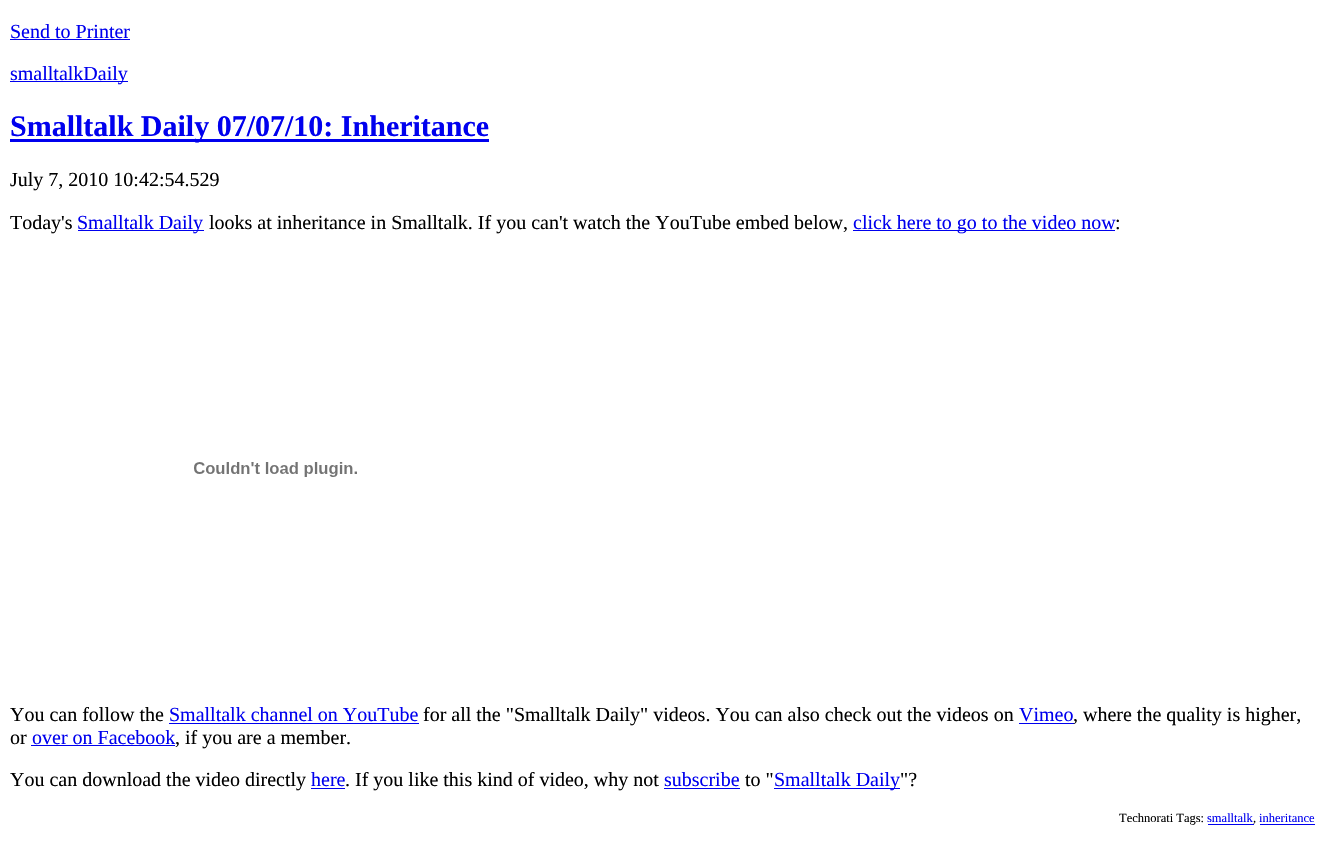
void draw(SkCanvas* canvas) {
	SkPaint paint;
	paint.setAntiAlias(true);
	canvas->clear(0xffffffff);
	SkFont f1(fontMgr->matchFamilyStyle("Liberation Serif", SkFontStyle::Normal()), 20);
	f1.setSubpixel(true);
	paint.setColor(0xff0000ee);
	canvas->drawString("Send to Printer", 10, 38, f1, paint);
	canvas->drawRect(SkRect::MakeXYWH(10, 39, 120, 1), paint);
	canvas->drawRect(SkRect::MakeXYWH(10, 81, 118, 1), paint);
	canvas->drawString("smalltalkDaily", 10, 80, f1, paint);
	canvas->drawRect(SkRect::MakeXYWH(10, 139, 479, 3), paint);
	SkFont f2(fontMgr->matchFamilyStyle("Liberation Serif", SkFontStyle::Bold()), 30);
	f2.setSubpixel(true);
	canvas->drawString("Smalltalk Daily 07/07/10: Inheritance", 10, 136, f2, paint);
	paint.setColor(0xff000000);
	canvas->drawString("July 7, 2010 10:42:54.529", 10, 186, f1, paint);
	canvas->drawString("Today's", 10, 229, f1, paint);
	paint.setColor(0xff0000ee);
	canvas->drawRect(SkRect::MakeXYWH(78, 230, 126, 1), paint);
	canvas->drawString("Smalltalk Daily", 77, 229, f1, paint);
	paint.setColor(0xff000000);
	canvas->drawString("looks at inheritance in Smalltalk. If you can't watch the YouTube embed below,", 209, 229, f1, paint);
	paint.setColor(0xff0000ee);
	canvas->drawRect(SkRect::MakeXYWH(853, 230, 262, 1), paint);
	canvas->drawString("click here to go to the video now", 853, 229, f1, paint);
	paint.setColor(0xff000000);
	canvas->drawString(":", 1115, 229, f1, paint);
	canvas->drawImageRect(SkImages::DeferredFromEncodedData(SkData::MakeFromFileName("img1.png")), SkRect::MakeXYWH(194, 462, 163, 15), SkSamplingOptions());
	canvas->drawString("You can follow the", 10, 721, f1, paint);
	paint.setColor(0xff0000ee);
	canvas->drawString("Smalltalk channel on YouTube", 169, 721, f1, paint);
	canvas->drawRect(SkRect::MakeXYWH(169, 723, 250, 1), paint);
	paint.setColor(0xff000000);
	canvas->drawString("for all the \"Smalltalk Daily\" videos. You can also check out the videos on", 423, 721, f1, paint);
	paint.setColor(0xff0000ee);
	canvas->drawString("Vimeo", 1019, 721, f1, paint);
	canvas->drawRect(SkRect::MakeXYWH(1019, 723, 55, 1), paint);
	paint.setColor(0xff000000);
	canvas->drawString(", where the quality is higher,", 1073, 721, f1, paint);
	canvas->drawString("or", 10, 744, f1, paint);
	paint.setColor(0xff0000ee);
	canvas->drawString("over on Facebook", 32, 744, f1, paint);
	canvas->drawRect(SkRect::MakeXYWH(31, 745, 144, 1), paint);
	paint.setColor(0xff000000);
	canvas->drawString(", if you are a member.", 175, 744, f1, paint);
	canvas->drawString("You can download the video directly", 10, 786, f1, paint);
	paint.setColor(0xff0000ee);
	canvas->drawString("here", 311, 786, f1, paint);
	canvas->drawRect(SkRect::MakeXYWH(311, 788, 34, 1), paint);
	paint.setColor(0xff000000);
	canvas->drawString(". If you like this kind of video, why not", 345, 786, f1, paint);
	paint.setColor(0xff0000ee);
	canvas->drawString("subscribe", 664, 786, f1, paint);
	canvas->drawRect(SkRect::MakeXYWH(664, 788, 76, 1), paint);
	paint.setColor(0xff000000);
	canvas->drawString("to \"", 745, 786, f1, paint);
	paint.setColor(0xff0000ee);
	canvas->drawRect(SkRect::MakeXYWH(774, 788, 126, 1), paint);
	canvas->drawString("Smalltalk Daily", 774, 786, f1, paint);
	paint.setColor(0xff000000);
	canvas->drawString("\"?", 900, 786, f1, paint);
	SkFont f3(fontMgr->matchFamilyStyle("Liberation Serif", SkFontStyle::Normal()), 12.5);
	f3.setSubpixel(true);
	canvas->drawString("Technorati Tags:", 1119, 822, f3, paint);
	paint.setColor(0xff0000ee);
	canvas->drawString("smalltalk", 1207, 822, f3, paint);
	canvas->drawRect(SkRect::MakeXYWH(1208, 824, 46, 1), paint);
	paint.setColor(0xff000000);
	canvas->drawString(",", 1253, 822, f3, paint);
	paint.setColor(0xff0000ee);
	canvas->drawString("inheritance", 1259, 822, f3, paint);
	canvas->drawRect(SkRect::MakeXYWH(1260, 824, 55, 1), paint);
}
